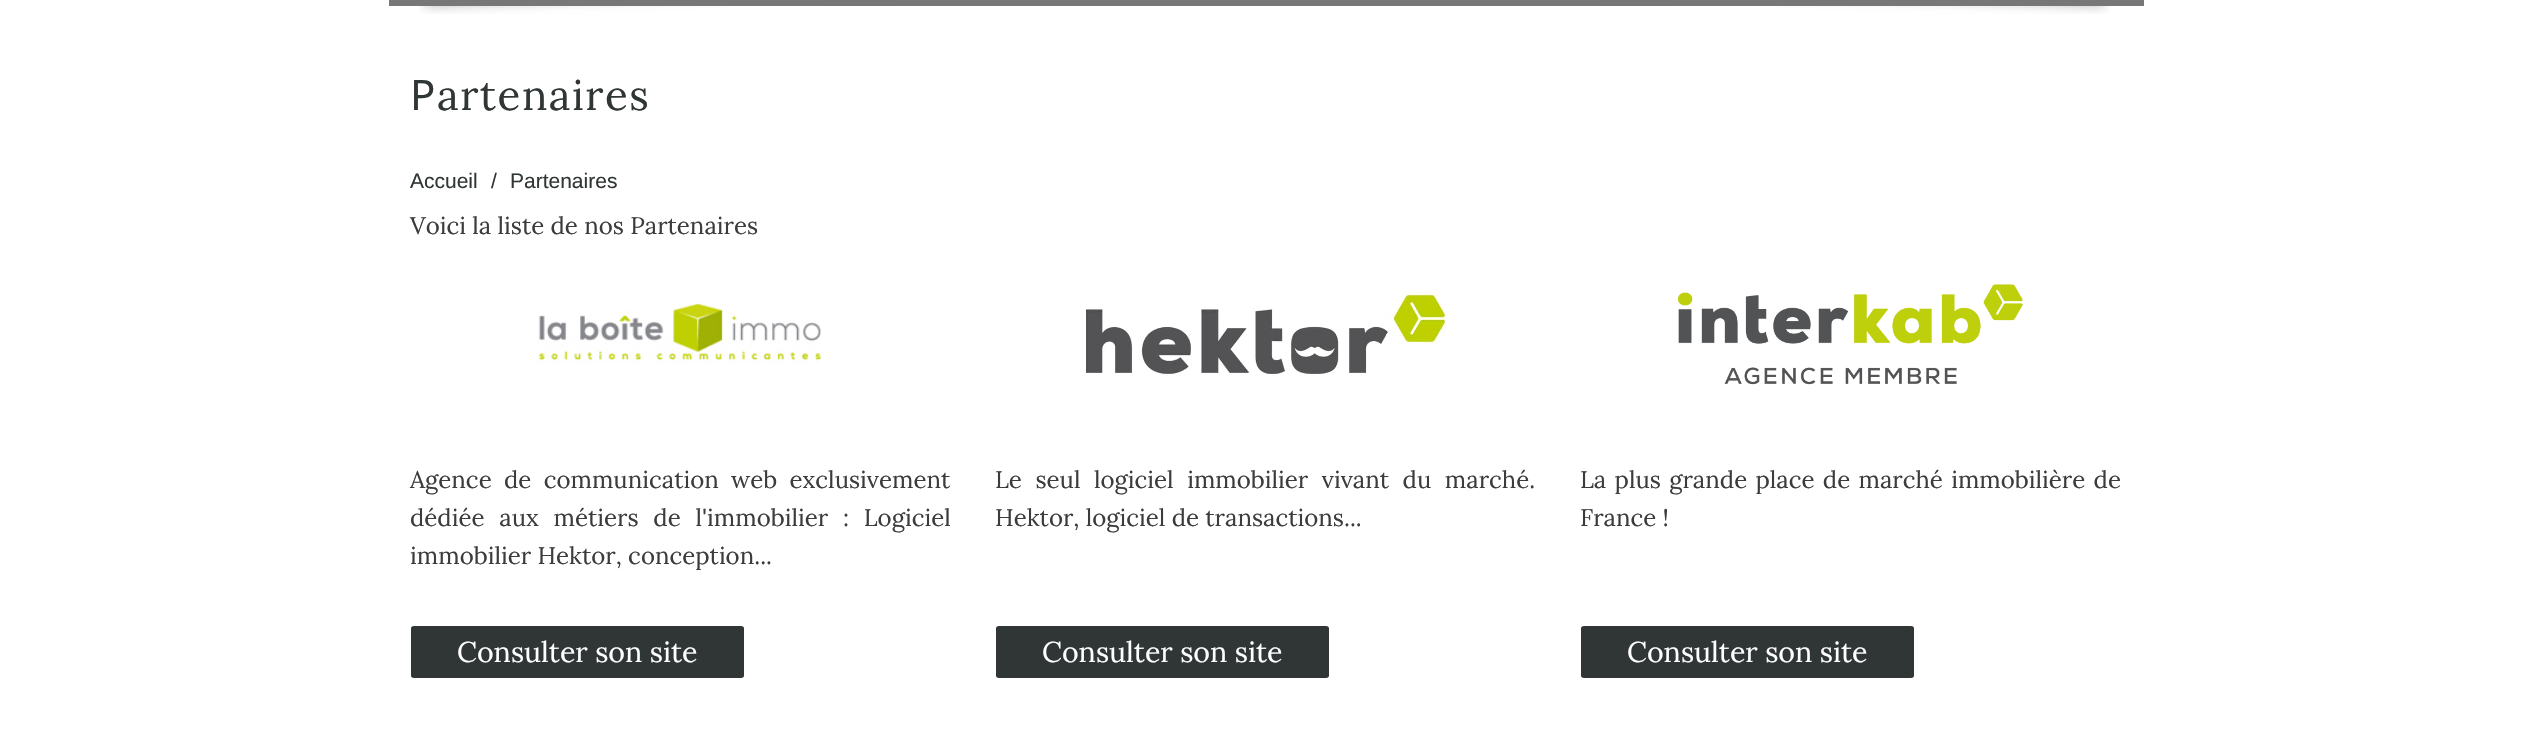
void draw(SkCanvas* canvas) {
	SkPaint paint;
	paint.setAntiAlias(true);
	auto spacedText = [&](const char* s, float x, float y, const SkFont& font, const SkPaint& ink, float letter, float word) {
		std::vector<SkGlyphID> glyphs(font.countText(s, strlen(s), SkTextEncoding::kUTF8));
		std::vector<float> xs(glyphs.size());
		font.textToGlyphs(s, strlen(s), SkTextEncoding::kUTF8, glyphs);
		font.getXPos(glyphs, xs, x);
		float extra = 0;
		for (size_t i = 0; i < glyphs.size(); i++) {
			xs[i] += extra;
			extra += letter + word * (glyphs[i] == font.unicharToGlyph(' '));
		}
		canvas->drawTextBlob(SkTextBlob::MakeFromPosHGlyphs(glyphs, xs, y, font), 0, 0, ink);
	};
	auto svgPath = [&](const char* data, bool evenOdd = false) {
		SkPath result = *SkParsePath::FromSVGString(data);
		if (evenOdd) result.setFillType(SkPathFillType::kEvenOdd);
		return result;
	};
	canvas->clear(0xffffffff);
	canvas->drawImageRect(SkImages::DeferredFromEncodedData(SkData::MakeFromFileName("img1.png")), SkRect::MakeXYWH(419, 6, 1691, 8), SkSamplingOptions());
	paint.setColor(0xff777777);
	canvas->drawRect(SkRect::MakeXYWH(389, 0, 1755, 6), paint);
	SkFont f1(fontMgr->matchFamilyStyle("Noto Sans", SkFontStyle::Normal()), 42);
	f1.setSubpixel(true);
	paint.setColor(0xff303636);
	spacedText("P", 410, 110, f1, paint, 1.5, 0);
	SkFont f2(fontMgr->matchFamilyStyle("Lora", SkFontStyle::Normal()), 42);
	f2.setSubpixel(true);
	spacedText("artenaires", 437, 110, f2, paint, 1.5, 0);
	SkFont f3(fontMgr->matchFamilyStyle("Liberation Sans", SkFontStyle::Normal()), 21);
	f3.setSubpixel(true);
	canvas->drawString("Accueil", 410, 188, f3, paint);
	canvas->drawString("/", 491, 188, f3, paint);
	canvas->drawString("Partenaires", 510, 188, f3, paint);
	SkFont f4(fontMgr->matchFamilyStyle("Lora", SkFontStyle::Normal()), 24);
	f4.setSubpixel(true);
	paint.setColor(0xff3c3c3c);
	canvas->drawString("Voici la liste de nos Partenaires", 410, 234, f4, paint);
	canvas->drawImageRect(SkImages::DeferredFromEncodedData(SkData::MakeFromFileName("img2.png")), SkRect::MakeXYWH(538, 302, 283, 62), SkSamplingOptions());
	spacedText("Agence de communication web exclusivement", 410, 488, f4, paint, 0, 6);
	spacedText("dédiée aux métiers de l'immobilier : Logiciel", 410, 526, f4, paint, 0, 8.5);
	canvas->drawString("immobilier Hektor, conception...", 410, 564, f4, paint);
	paint.setColor(0xff303636);
	canvas->drawRoundRect(SkRect::MakeXYWH(411, 626, 333, 52), 3, 3, paint);
	canvas->save();
	canvas->clipPath(svgPath("M414 626H741C742.5 626 744 627.5 744 629V675C744 676.5 742.5 678 741 678H414C412.5 678 411 676.5 411 675V629C411 627.5 412.5 626 414 626Z"), true);
	canvas->drawRect(SkRect::MakeXYWH(411, 627, 333, 50), paint);
	canvas->restore();
	SkFont f5(fontMgr->matchFamilyStyle("Lora", SkFontStyle::Normal()), 28.5);
	f5.setSubpixel(true);
	paint.setColor(0xffffffff);
	canvas->drawString("Consulter son site", 457, 662, f5, paint);
	canvas->drawImageRect(SkImages::DeferredFromEncodedData(SkData::MakeFromFileName("img3.png")), SkRect::MakeXYWH(1086, 290, 361, 86), SkSamplingOptions());
	paint.setColor(0xff3c3c3c);
	spacedText("Le seul logiciel immobilier vivant du marché.", 995, 488, f4, paint, 0, 7.25);
	canvas->drawString("Hektor, logiciel de transactions...", 995, 526, f4, paint);
	paint.setColor(0xff303636);
	canvas->drawRoundRect(SkRect::MakeXYWH(996, 626, 333, 52), 3, 3, paint);
	canvas->save();
	canvas->clipPath(svgPath("M999 626H1326C1327.5 626 1329 627.5 1329 629V675C1329 676.5 1327.5 678 1326 678H999C997.5 678 996 676.5 996 675V629C996 627.5 997.5 626 999 626Z"), true);
	canvas->drawRect(SkRect::MakeXYWH(996, 627, 333, 50), paint);
	canvas->restore();
	paint.setColor(0xffffffff);
	canvas->drawString("Consulter son site", 1042, 662, f5, paint);
	canvas->drawImageRect(SkImages::DeferredFromEncodedData(SkData::MakeFromFileName("img4.png")), SkRect::MakeXYWH(1678, 284, 345, 101), SkSamplingOptions());
	paint.setColor(0xff3c3c3c);
	spacedText("La plus grande place de marché immobilière de", 1580, 488, f4, paint, 0, 2);
	canvas->drawString("France !", 1580, 526, f4, paint);
	paint.setColor(0xff303636);
	canvas->drawRoundRect(SkRect::MakeXYWH(1581, 626, 333, 52), 3, 3, paint);
	canvas->save();
	canvas->clipPath(svgPath("M1584 626H1911C1912.5 626 1914 627.5 1914 629V675C1914 676.5 1912.5 678 1911 678H1584C1582.5 678 1581 676.5 1581 675V629C1581 627.5 1582.5 626 1584 626Z"), true);
	canvas->drawRect(SkRect::MakeXYWH(1581, 627, 333, 50), paint);
	canvas->restore();
	paint.setColor(0xffffffff);
	canvas->drawString("Consulter son site", 1627, 662, f5, paint);
}
